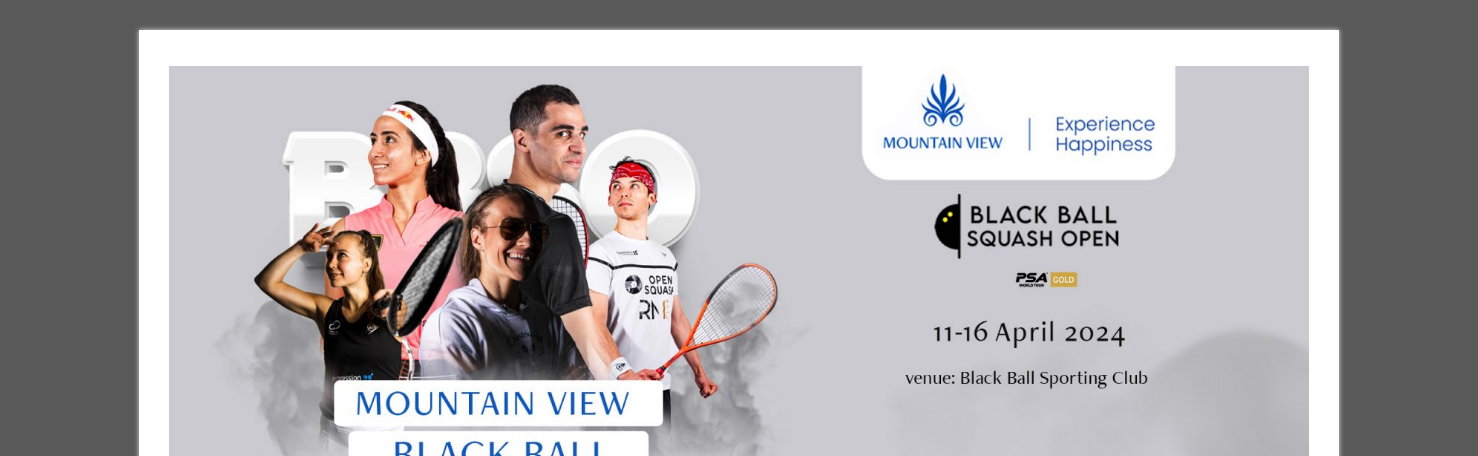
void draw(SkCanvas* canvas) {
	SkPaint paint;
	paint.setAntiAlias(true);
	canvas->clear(0xff595959);
	paint.setColor(0xffdddddd);
	paint.setMaskFilter(SkMaskFilter::MakeBlur(kNormal_SkBlurStyle, 2.5));
	canvas->drawRect(SkRect::MakeXYWH(139, 30, 1200, 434), paint);
	paint.setMaskFilter(nullptr);
	paint.setColor(0xffffffff);
	canvas->drawRect(SkRect::MakeXYWH(139, 30, 1200, 426), paint);
	canvas->drawImageRect(SkImages::DeferredFromEncodedData(SkData::MakeFromFileName("img1.png")), SkRect::MakeXYWH(169, 66, 1140, 390), SkSamplingOptions());
}
